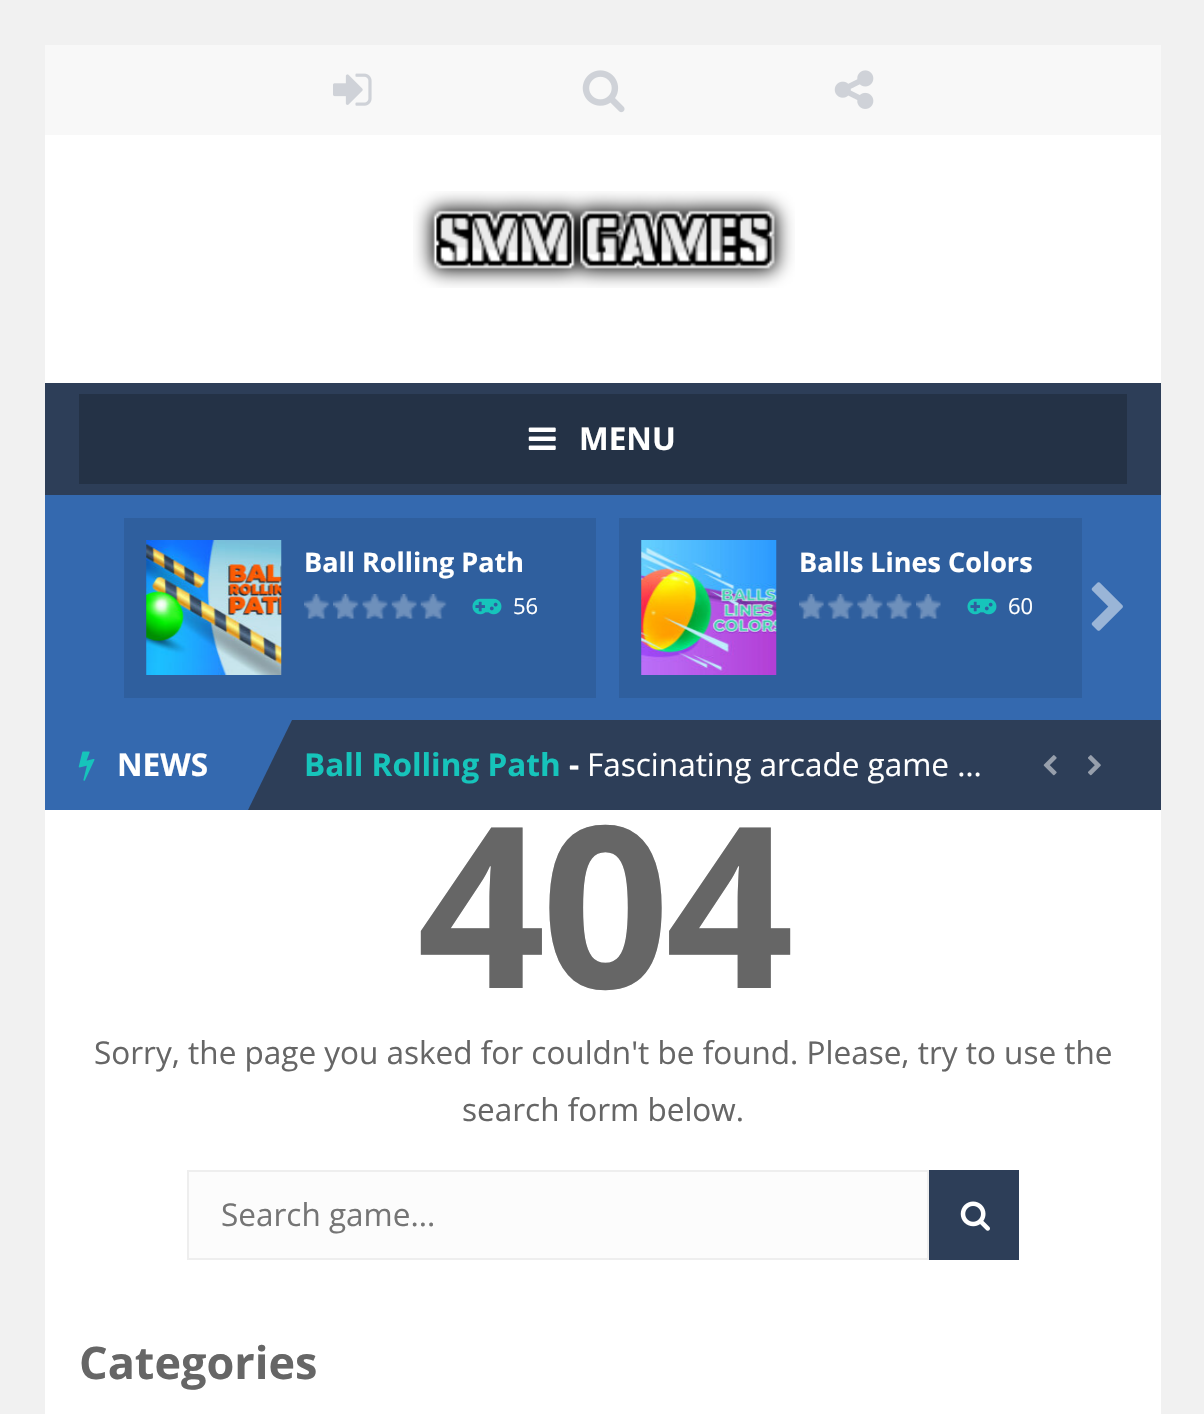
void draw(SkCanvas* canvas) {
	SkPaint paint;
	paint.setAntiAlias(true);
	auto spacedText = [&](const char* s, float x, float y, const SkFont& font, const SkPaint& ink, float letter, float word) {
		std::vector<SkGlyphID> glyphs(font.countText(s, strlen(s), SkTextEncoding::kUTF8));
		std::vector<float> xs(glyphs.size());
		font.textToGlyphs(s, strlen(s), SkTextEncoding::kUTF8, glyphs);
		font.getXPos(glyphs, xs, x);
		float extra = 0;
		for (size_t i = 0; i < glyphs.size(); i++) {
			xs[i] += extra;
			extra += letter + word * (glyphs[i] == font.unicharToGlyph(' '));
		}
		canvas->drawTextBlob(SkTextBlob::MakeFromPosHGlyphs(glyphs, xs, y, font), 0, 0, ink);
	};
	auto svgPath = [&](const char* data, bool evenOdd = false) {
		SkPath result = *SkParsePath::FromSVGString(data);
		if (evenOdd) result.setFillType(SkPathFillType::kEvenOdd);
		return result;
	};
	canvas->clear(0xfff1f1f1);
	paint.setColor(0xfff8f8f8);
	canvas->drawRect(SkRect::MakeXYWH(45, 45, 1116, 90), paint);
	canvas->drawImageRect(SkImages::DeferredFromEncodedData(SkData::MakeFromFileName("img1.png")), SkRect::MakeXYWH(333, 73, 39, 33), SkSamplingOptions());
	canvas->drawImageRect(SkImages::DeferredFromEncodedData(SkData::MakeFromFileName("img2.png")), SkRect::MakeXYWH(582, 70, 43, 43), SkSamplingOptions());
	canvas->drawImageRect(SkImages::DeferredFromEncodedData(SkData::MakeFromFileName("img3.png")), SkRect::MakeXYWH(834, 70, 40, 39), SkSamplingOptions());
	paint.setColor(0xffffffff);
	canvas->drawRect(SkRect::MakeXYWH(45, 135, 1116, 248), paint);
	canvas->drawImageRect(SkImages::DeferredFromEncodedData(SkData::MakeFromFileName("img4.png")), SkRect::MakeXYWH(413, 191, 382, 97), SkSamplingOptions());
	paint.setColor(0xff2d3e58);
	canvas->drawRect(SkRect::MakeXYWH(45, 383, 1116, 112), paint);
	paint.setColor(0xff243246);
	canvas->drawRect(SkRect::MakeXYWH(79, 394, 1048, 90), paint);
	canvas->drawImageRect(SkImages::DeferredFromEncodedData(SkData::MakeFromFileName("img5.png")), SkRect::MakeXYWH(528, 427, 28, 23), SkSamplingOptions());
	SkFont f1(fontMgr->matchFamilyStyle("Open Sans", SkFontStyle::Bold()), 31.5);
	f1.setSubpixel(true);
	paint.setColor(0xffffffff);
	canvas->drawString("MENU", 579, 450, f1, paint);
	paint.setColor(0xff3469af);
	canvas->drawRect(SkRect::MakeXYWH(45, 495, 1116, 225), paint);
	paint.setColor(0xff2f5f9e);
	canvas->drawRect(SkRect::MakeXYWH(124, 518, 472, 180), paint);
	canvas->drawImageRect(SkImages::DeferredFromEncodedData(SkData::MakeFromFileName("img6.png")), SkRect::MakeXYWH(146, 540, 136, 135), SkSamplingOptions());
	SkFont f2(fontMgr->matchFamilyStyle("Open Sans", SkFontStyle::Bold()), 27);
	f2.setSubpixel(true);
	paint.setColor(0xffffffff);
	canvas->drawString("Ball Rolling Path", 304, 572, f2, paint);
	canvas->drawImageRect(SkImages::DeferredFromEncodedData(SkData::MakeFromFileName("img7.png")), SkRect::MakeXYWH(304, 594, 26, 25), SkSamplingOptions());
	canvas->drawImageRect(SkImages::DeferredFromEncodedData(SkData::MakeFromFileName("img8.png")), SkRect::MakeXYWH(333, 594, 26, 25), SkSamplingOptions());
	canvas->drawImageRect(SkImages::DeferredFromEncodedData(SkData::MakeFromFileName("img9.png")), SkRect::MakeXYWH(362, 594, 26, 25), SkSamplingOptions());
	canvas->drawImageRect(SkImages::DeferredFromEncodedData(SkData::MakeFromFileName("img10.png")), SkRect::MakeXYWH(391, 594, 26, 25), SkSamplingOptions());
	canvas->drawImageRect(SkImages::DeferredFromEncodedData(SkData::MakeFromFileName("img11.png")), SkRect::MakeXYWH(420, 594, 27, 25), SkSamplingOptions());
	canvas->drawImageRect(SkImages::DeferredFromEncodedData(SkData::MakeFromFileName("img12.png")), SkRect::MakeXYWH(472, 598, 30, 17), SkSamplingOptions());
	SkFont f3(fontMgr->matchFamilyStyle("Open Sans", SkFontStyle::Normal()), 22);
	f3.setSubpixel(true);
	canvas->drawString("56", 513, 614, f3, paint);
	paint.setColor(0xff2f5f9e);
	canvas->drawRect(SkRect::MakeXYWH(619, 518, 463, 180), paint);
	canvas->drawImageRect(SkImages::DeferredFromEncodedData(SkData::MakeFromFileName("img13.png")), SkRect::MakeXYWH(641, 540, 136, 135), SkSamplingOptions());
	paint.setColor(0xffffffff);
	canvas->drawString("Balls Lines Colors", 799, 572, f2, paint);
	canvas->drawImageRect(SkImages::DeferredFromEncodedData(SkData::MakeFromFileName("img14.png")), SkRect::MakeXYWH(799, 594, 25, 25), SkSamplingOptions());
	canvas->drawImageRect(SkImages::DeferredFromEncodedData(SkData::MakeFromFileName("img15.png")), SkRect::MakeXYWH(827, 594, 27, 25), SkSamplingOptions());
	canvas->drawImageRect(SkImages::DeferredFromEncodedData(SkData::MakeFromFileName("img16.png")), SkRect::MakeXYWH(857, 594, 26, 25), SkSamplingOptions());
	canvas->drawImageRect(SkImages::DeferredFromEncodedData(SkData::MakeFromFileName("img17.png")), SkRect::MakeXYWH(886, 594, 26, 25), SkSamplingOptions());
	canvas->drawImageRect(SkImages::DeferredFromEncodedData(SkData::MakeFromFileName("img18.png")), SkRect::MakeXYWH(916, 594, 25, 25), SkSamplingOptions());
	canvas->drawImageRect(SkImages::DeferredFromEncodedData(SkData::MakeFromFileName("img12.png")), SkRect::MakeXYWH(967, 598, 30, 17), SkSamplingOptions());
	canvas->drawString("60", 1008, 614, f3, paint);
	canvas->drawImageRect(SkImages::DeferredFromEncodedData(SkData::MakeFromFileName("img19.png")), SkRect::MakeXYWH(1091, 582, 32, 49), SkSamplingOptions());
	paint.setColor(0xff2d3e58);
	canvas->drawRect(SkRect::MakeXYWH(248, 720, 913, 90), paint);
	paint.setColor(0xff3469af);
	canvas->drawRect(SkRect::MakeXYWH(45, 720, 203, 90), paint);
	canvas->drawImageRect(SkImages::DeferredFromEncodedData(SkData::MakeFromFileName("img20.png")), SkRect::MakeXYWH(78, 751, 17, 30), SkSamplingOptions());
	paint.setColor(0xffffffff);
	canvas->drawString("NEWS", 117, 776, f1, paint);
	paint.setColor(0xff3469af);
	canvas->drawPath(svgPath("M248 720H292L248 810Z"), paint);
	paint.setColor(0xff16c4bb);
	canvas->drawString("Ball Rolling Path", 304, 776, f1, paint);
	paint.setColor(0xffffffff);
	canvas->drawString("-", 569, 776, f1, paint);
	SkFont f4(fontMgr->matchFamilyStyle("Open Sans", SkFontStyle::Normal()), 31.5);
	f4.setSubpixel(true);
	canvas->drawString("Fascinating arcade game …", 587, 776, f4, paint);
	canvas->drawImageRect(SkImages::DeferredFromEncodedData(SkData::MakeFromFileName("img21.png")), SkRect::MakeXYWH(1043, 755, 14, 21), SkSamplingOptions());
	canvas->drawImageRect(SkImages::DeferredFromEncodedData(SkData::MakeFromFileName("img22.png")), SkRect::MakeXYWH(1088, 755, 13, 21), SkSamplingOptions());
	canvas->drawRect(SkRect::MakeXYWH(45, 810, 1116, 604), paint);
	SkFont f5(fontMgr->matchFamilyStyle("Open Sans", SkFontStyle::Bold()), 225);
	f5.setSubpixel(true);
	paint.setColor(0xff666666);
	spacedText("404", 417, 988, f5, paint, -4.5, 0);
	canvas->drawString("Sorry, the page you asked for couldn't be found. Please, try to use the", 94, 1064, f4, paint);
	canvas->drawString("search form below.", 462, 1121, f4, paint);
	paint.setColor(0xfffcfcfc);
	canvas->drawRect(SkRect::MakeXYWH(188, 1171, 740, 88), paint);
	paint.setStroke(true);
	paint.setStrokeWidth(2);
	paint.setColor(0xffeeeeee);
	canvas->drawRect(SkRect::MakeXYWH(188, 1171, 740, 88), paint);
	paint.setStroke(false);
	paint.setColor(0xff757575);
	canvas->drawString("Search game...", 221, 1226, f4, paint);
	paint.setColor(0xff2d3e58);
	canvas->drawRect(SkRect::MakeXYWH(929, 1170, 90, 90), paint);
	canvas->drawImageRect(SkImages::DeferredFromEncodedData(SkData::MakeFromFileName("img23.png")), SkRect::MakeXYWH(960, 1201, 30, 30), SkSamplingOptions());
	SkFont f6(fontMgr->matchFamilyStyle("Open Sans", SkFontStyle::Bold()), 45);
	f6.setSubpixel(true);
	paint.setColor(0xff666666);
	canvas->drawString("Categories", 79, 1379, f6, paint);
}
